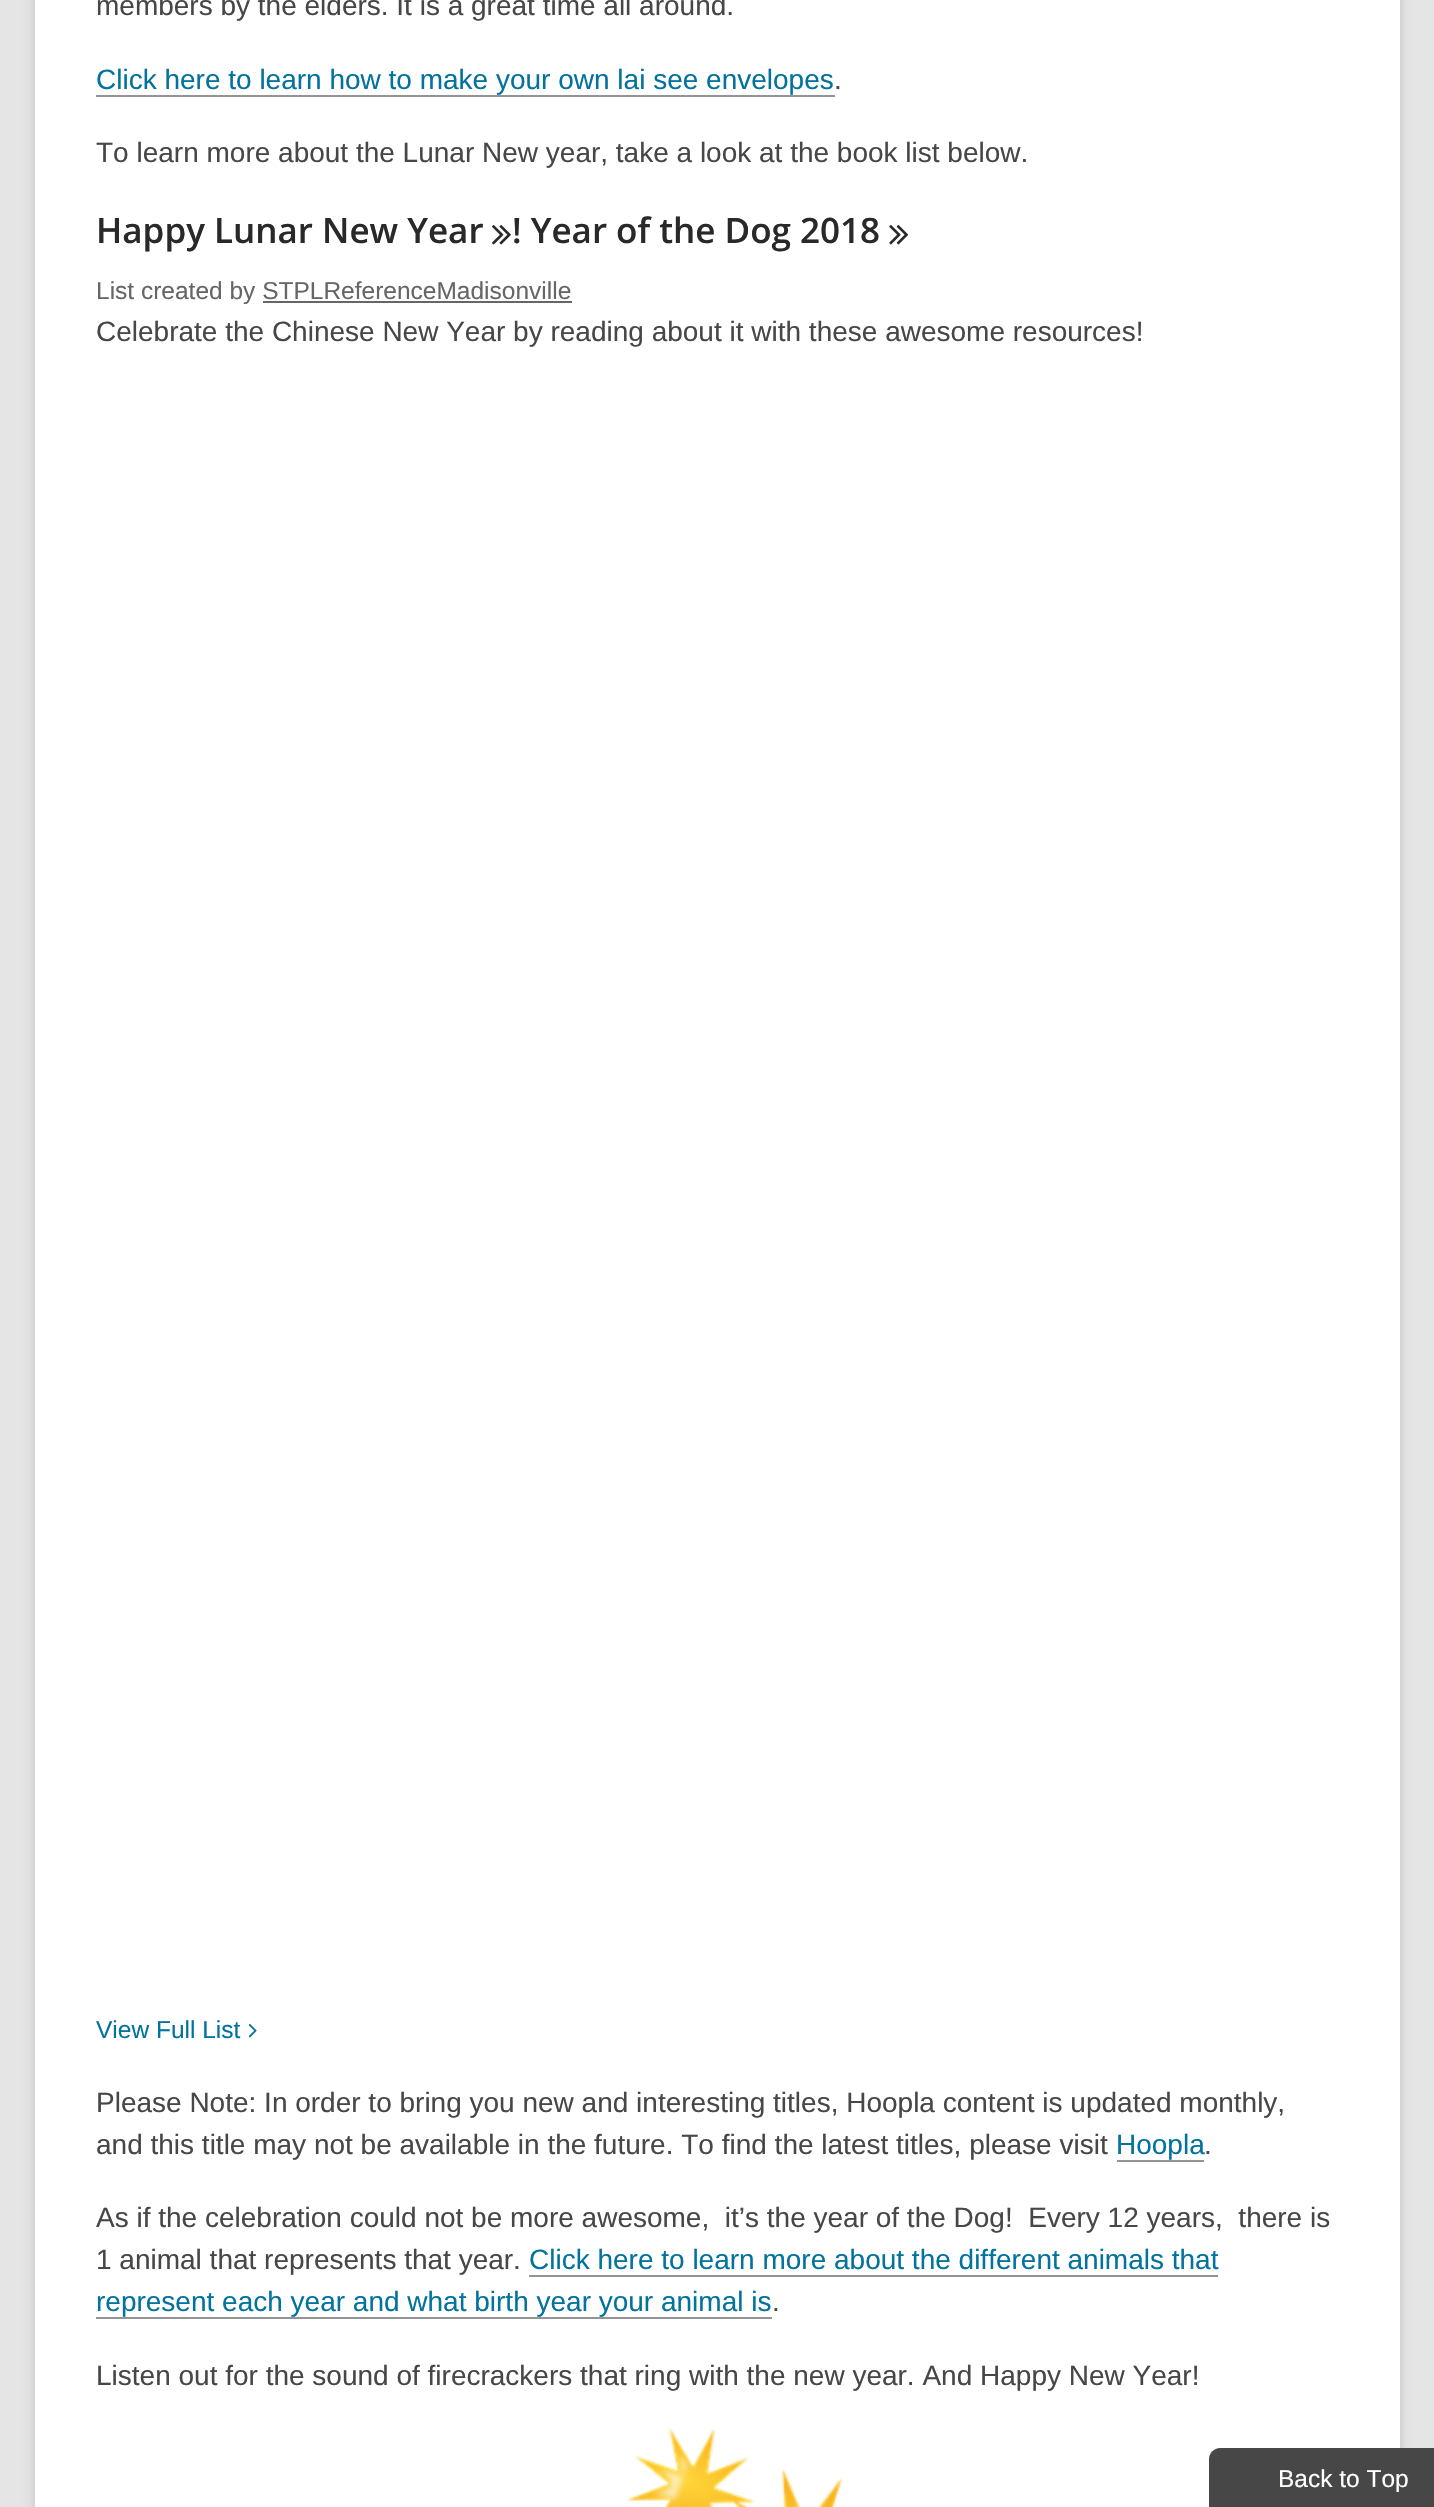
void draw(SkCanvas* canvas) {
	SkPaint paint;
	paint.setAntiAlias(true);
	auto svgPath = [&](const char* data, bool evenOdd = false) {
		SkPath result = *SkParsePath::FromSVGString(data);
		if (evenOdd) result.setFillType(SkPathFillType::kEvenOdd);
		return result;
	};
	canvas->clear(0xffe5e5e5);
	paint.setColor(0x29000000);
	paint.setMaskFilter(SkMaskFilter::MakeBlur(kNormal_SkBlurStyle, 5));
	canvas->drawRect(SkRect::MakeXYWH(35, -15, 1365, 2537), paint);
	paint.setMaskFilter(nullptr);
	paint.setColor(0xffffffff);
	canvas->drawRect(SkRect::MakeXYWH(35, 0, 1365, 2507), paint);
	SkFont f1(fontMgr->matchFamilyStyle("Liberation Sans", SkFontStyle::Normal()), 28);
	f1.setSubpixel(true);
	paint.setColor(0xff474747);
	canvas->drawString("members by the elders. It is a great time all around.", 96, 15, f1, paint);
	paint.setColor(0xff02729e);
	canvas->drawString("Click here to learn how to make your own lai see envelopes", 96, 89, f1, paint);
	paint.setColor(0xff474747);
	canvas->drawString(".", 834, 89, f1, paint);
	paint.setColor(0xff949494);
	canvas->drawRect(SkRect::MakeXYWH(96, 95, 739, 2), paint);
	paint.setColor(0xff474747);
	canvas->drawString("To learn more about the Lunar New year, take a look at the book list below.", 96, 162, f1, paint);
	SkFont f2(fontMgr->matchFamilyStyle("Open Sans", SkFontStyle(600, SkFontStyle::kNormal_Width, SkFontStyle::kUpright_Slant)), 35);
	f2.setSubpixel(true);
	paint.setColor(0xff292929);
	canvas->drawString("Happy Lunar New Year", 96, 243, f2, paint);
	canvas->drawImageRect(SkImages::DeferredFromEncodedData(SkData::MakeFromFileName("img1.png")), SkRect::MakeXYWH(492, 225, 19, 20), SkSamplingOptions());
	canvas->drawString("! Year of the Dog 2018", 512, 243, f2, paint);
	canvas->drawImageRect(SkImages::DeferredFromEncodedData(SkData::MakeFromFileName("img2.png")), SkRect::MakeXYWH(889, 225, 19, 20), SkSamplingOptions());
	SkFont f3(fontMgr->matchFamilyStyle("Liberation Sans", SkFontStyle::Normal()), 24.5);
	f3.setSubpixel(true);
	paint.setColor(0xff666666);
	canvas->drawString("List created by STPLReferenceMadisonville", 96, 299, f3, paint);
	canvas->drawRect(SkRect::MakeXYWH(263, 301, 309, 2), paint);
	paint.setColor(0xff474747);
	canvas->drawString("Celebrate the Chinese New Year by reading about it with these awesome resources!", 96, 341, f1, paint);
	paint.setColor(0xff02729e);
	canvas->drawString("View Full List", 96, 2038, f3, paint);
	canvas->drawImageRect(SkImages::DeferredFromEncodedData(SkData::MakeFromFileName("img3.png")), SkRect::MakeXYWH(249, 2023, 8, 15), SkSamplingOptions());
	paint.setColor(0xff474747);
	canvas->drawString("Please Note: In order to bring you new and interesting titles, Hoopla content is updated monthly,", 96, 2112, f1, paint);
	canvas->drawString("and this title may not be available in the future. To find the latest titles, please visit", 96, 2154, f1, paint);
	paint.setColor(0xff02729e);
	canvas->drawString("Hoopla", 1116, 2154, f1, paint);
	paint.setColor(0xff949494);
	canvas->drawRect(SkRect::MakeXYWH(1117, 2160, 87, 2), paint);
	paint.setColor(0xff474747);
	canvas->drawString(".", 1204, 2154, f1, paint);
	canvas->drawString("As if the celebration could not be more awesome,  it’s the year of the Dog!  Every 12 years,  there is", 96, 2227, f1, paint);
	canvas->drawString("1 animal that represents that year.", 96, 2269, f1, paint);
	paint.setColor(0xff02729e);
	canvas->drawString("Click here to learn more about the different animals that", 529, 2269, f1, paint);
	paint.setColor(0xff949494);
	canvas->drawRect(SkRect::MakeXYWH(529, 2275, 689, 2), paint);
	paint.setColor(0xff02729e);
	canvas->drawString("represent each year and what birth year your animal is", 96, 2311, f1, paint);
	paint.setColor(0xff474747);
	canvas->drawString(".", 772, 2311, f1, paint);
	paint.setColor(0xff949494);
	canvas->drawRect(SkRect::MakeXYWH(96, 2317, 676, 2), paint);
	paint.setColor(0xff474747);
	canvas->drawString("Listen out for the sound of firecrackers that ring with the new year. And Happy New Year!", 96, 2385, f1, paint);
	canvas->drawImageRect(SkImages::DeferredFromEncodedData(SkData::MakeFromFileName("img4.png")), SkRect::MakeXYWH(627, 2428, 216, 79), SkSamplingOptions());
	canvas->drawPath(svgPath("M1220 2448H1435V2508H1209V2459C1209 2453 1214 2448 1220 2448Z"), paint);
	paint.setColor(0xffffffff);
	canvas->drawString("Back to Top", 1278, 2487, f3, paint);
}
